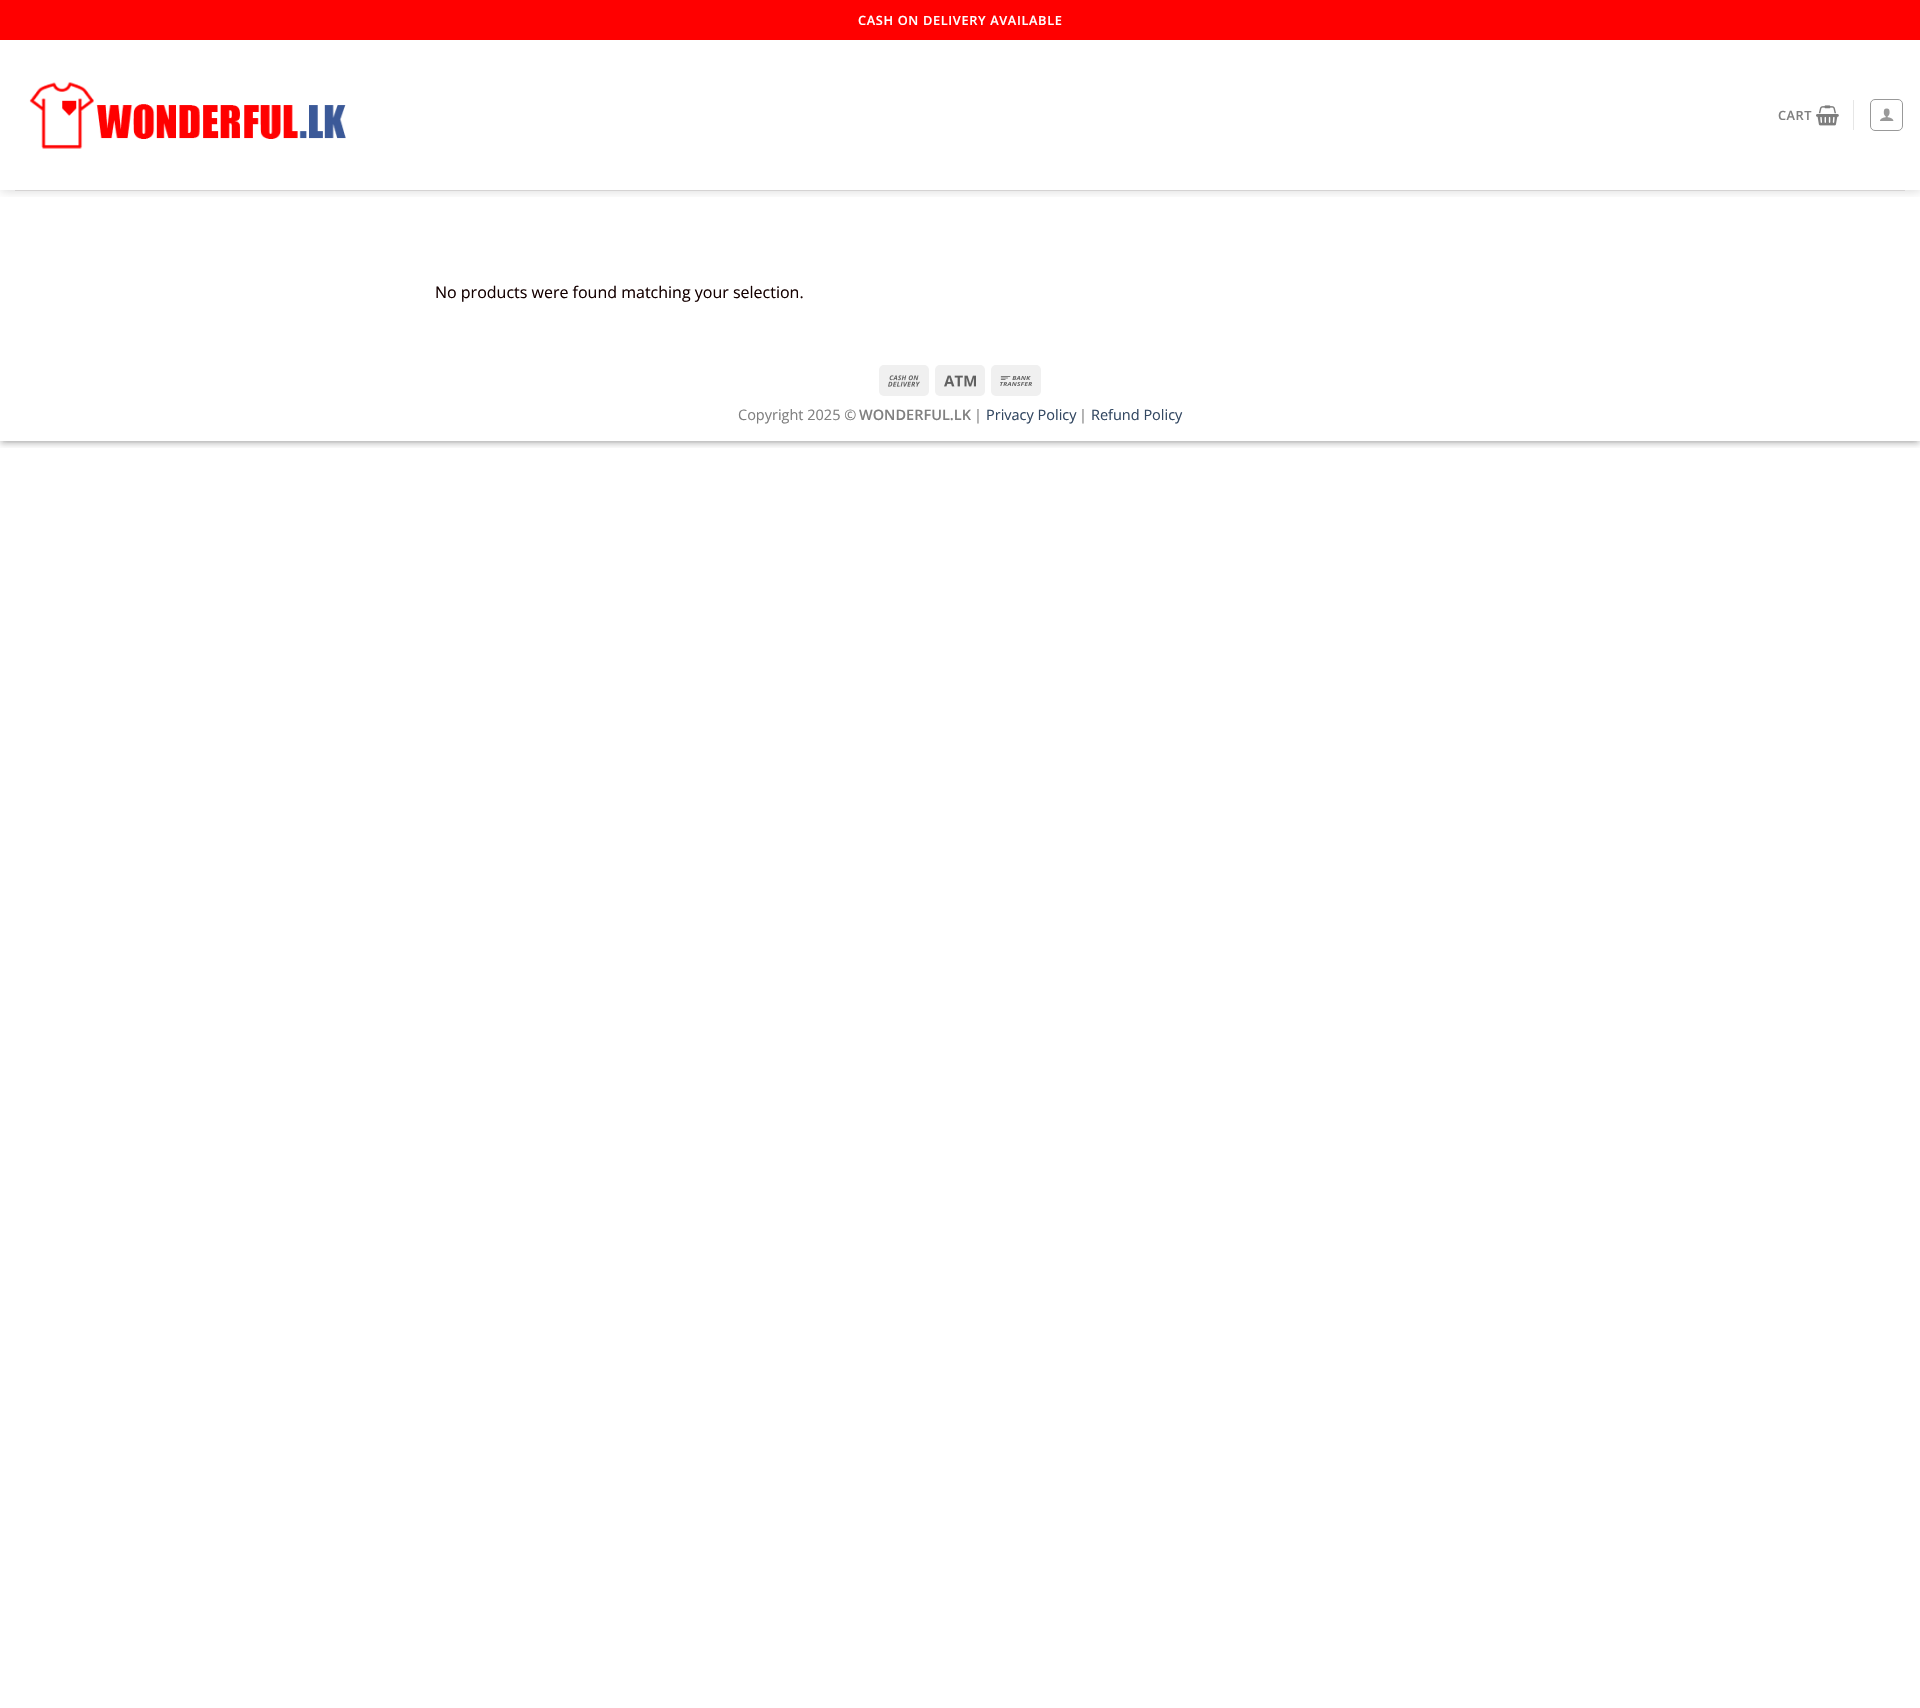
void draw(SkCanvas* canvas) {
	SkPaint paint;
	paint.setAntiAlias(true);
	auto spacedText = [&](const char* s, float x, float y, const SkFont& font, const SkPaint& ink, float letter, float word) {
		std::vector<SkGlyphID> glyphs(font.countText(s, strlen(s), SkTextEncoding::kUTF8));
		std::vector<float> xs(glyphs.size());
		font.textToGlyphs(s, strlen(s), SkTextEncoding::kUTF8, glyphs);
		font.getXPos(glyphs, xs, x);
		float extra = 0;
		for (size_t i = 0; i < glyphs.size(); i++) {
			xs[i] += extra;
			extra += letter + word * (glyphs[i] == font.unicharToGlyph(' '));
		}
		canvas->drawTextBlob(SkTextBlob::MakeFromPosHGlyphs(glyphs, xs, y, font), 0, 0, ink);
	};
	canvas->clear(0xffffffff);
	canvas->save();
	canvas->clipRect(SkRect::MakeXYWH(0, 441, 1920, 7));
	paint.setColor(0x3b000000);
	paint.setMaskFilter(SkMaskFilter::MakeBlur(kNormal_SkBlurStyle, 3));
	canvas->drawRect(SkRect::MakeXYWH(0, 3, 1920, 441), paint);
	paint.setMaskFilter(nullptr);
	canvas->restore();
	canvas->save();
	canvas->clipRect(SkRect::MakeXYWH(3, 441, 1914, 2));
	paint.setColor(0x29000000);
	paint.setMaskFilter(SkMaskFilter::MakeBlur(kNormal_SkBlurStyle, 3));
	canvas->drawRect(SkRect::MakeXYWH(4, 7, 1912, 433), paint);
	paint.setMaskFilter(nullptr);
	canvas->restore();
	canvas->save();
	canvas->clipRect(SkRect::MakeXYWH(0, 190, 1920, 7));
	paint.setColor(0x26000000);
	paint.setMaskFilter(SkMaskFilter::MakeBlur(kNormal_SkBlurStyle, 5));
	canvas->drawRect(SkRect::MakeXYWH(1, 1, 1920, 190), paint);
	paint.setMaskFilter(nullptr);
	canvas->restore();
	paint.setColor(0xffff0000);
	canvas->drawRect(SkRect::MakeXYWH(0, 0, 1920, 40), paint);
	SkFont f1(fontMgr->matchFamilyStyle("Open Sans", SkFontStyle(600, SkFontStyle::kNormal_Width, SkFontStyle::kUpright_Slant)), 12.75);
	f1.setSubpixel(true);
	paint.setColor(0xffffffff);
	spacedText("CASH ON DELIVERY AVAILABLE", 858, 25, f1, paint, 0.65, 0);
	canvas->drawImageRect(SkImages::DeferredFromEncodedData(SkData::MakeFromFileName("img1.png")), SkRect::MakeXYWH(29, 82, 317, 67), SkSamplingOptions());
	paint.setColor(0xff808080);
	spacedText("CART", 1778, 120, f1, paint, 0.5, 0);
	canvas->drawImageRect(SkImages::DeferredFromEncodedData(SkData::MakeFromFileName("img2.png")), SkRect::MakeXYWH(1816, 105, 23, 21), SkSamplingOptions());
	paint.setColor(0xffe6e6e6);
	canvas->drawRect(SkRect::MakeXYWH(1853, 100, 1, 30), paint);
	paint.setStroke(true);
	paint.setStrokeWidth(1);
	paint.setColor(0xff999999);
	canvas->drawRoundRect(SkRect::MakeXYWH(1870.5, 99.5, 32, 31), 4.5, 4.5, paint);
	canvas->drawImageRect(SkImages::DeferredFromEncodedData(SkData::MakeFromFileName("img3.png")), SkRect::MakeXYWH(1880, 108, 14, 13), SkSamplingOptions());
	paint.setStroke(false);
	paint.setColor(0xffd5d3d3);
	canvas->drawRect(SkRect::MakeXYWH(15, 190, 1890, 1), paint);
	SkFont f2(fontMgr->matchFamilyStyle("Open Sans", SkFontStyle::Normal()), 16);
	f2.setSubpixel(true);
	paint.setColor(0xff140000);
	canvas->drawString("No products were found matching your selection.", 435, 298, f2, paint);
	paint.setColor(0xfff0f0f0);
	canvas->drawRoundRect(SkRect::MakeXYWH(879, 365, 50, 31), 5, 5, paint);
	canvas->drawImageRect(SkImages::DeferredFromEncodedData(SkData::MakeFromFileName("img4.png")), SkRect::MakeXYWH(888, 375, 32, 12), SkSamplingOptions());
	canvas->drawRoundRect(SkRect::MakeXYWH(935, 365, 50, 31), 5, 5, paint);
	canvas->drawImageRect(SkImages::DeferredFromEncodedData(SkData::MakeFromFileName("img5.png")), SkRect::MakeXYWH(944, 375, 32, 12), SkSamplingOptions());
	canvas->drawRoundRect(SkRect::MakeXYWH(991, 365, 50, 31), 5, 5, paint);
	canvas->drawImageRect(SkImages::DeferredFromEncodedData(SkData::MakeFromFileName("img6.png")), SkRect::MakeXYWH(1000, 376, 32, 10), SkSamplingOptions());
	SkFont f3(fontMgr->matchFamilyStyle("Open Sans", SkFontStyle::Normal()), 14.5);
	f3.setSubpixel(true);
	paint.setColor(0xff808080);
	canvas->drawString("Copyright 2025 ©", 738, 420, f3, paint);
	SkFont f4(fontMgr->matchFamilyStyle("Open Sans", SkFontStyle(600, SkFontStyle::kNormal_Width, SkFontStyle::kUpright_Slant)), 14.5);
	f4.setSubpixel(true);
	canvas->drawString("WONDERFUL.LK", 859, 420, f4, paint);
	canvas->drawString("|", 974, 420, f3, paint);
	paint.setColor(0xff334862);
	canvas->drawString("Privacy Policy", 986, 420, f3, paint);
	paint.setColor(0xff808080);
	canvas->drawString("|", 1079, 420, f3, paint);
	paint.setColor(0xff334862);
	canvas->drawString("Refund Policy", 1091, 420, f3, paint);
}
